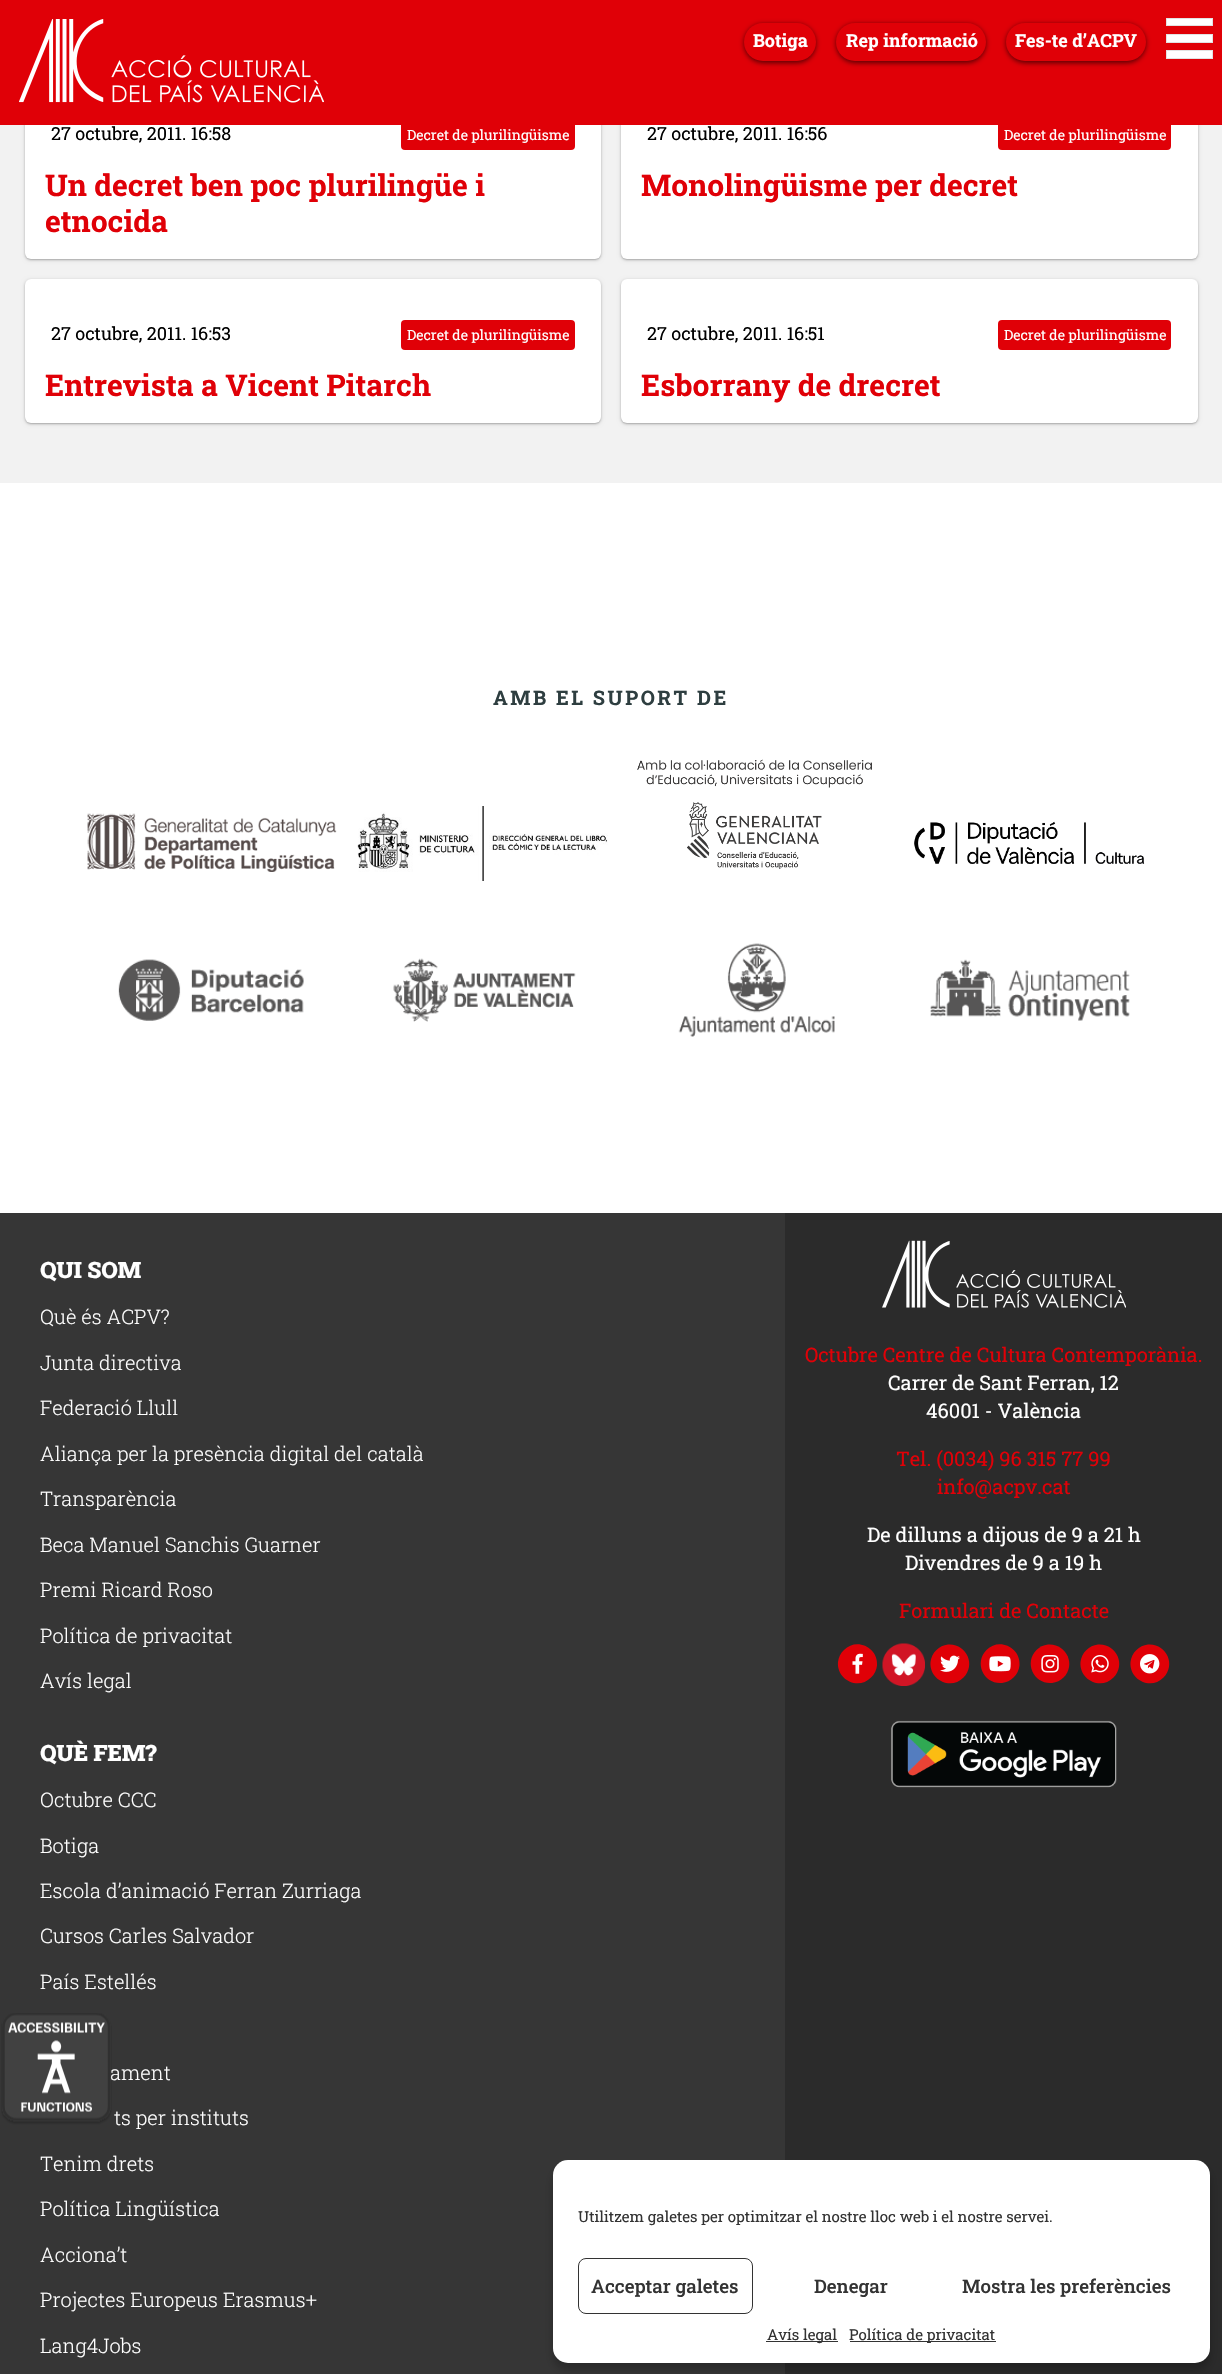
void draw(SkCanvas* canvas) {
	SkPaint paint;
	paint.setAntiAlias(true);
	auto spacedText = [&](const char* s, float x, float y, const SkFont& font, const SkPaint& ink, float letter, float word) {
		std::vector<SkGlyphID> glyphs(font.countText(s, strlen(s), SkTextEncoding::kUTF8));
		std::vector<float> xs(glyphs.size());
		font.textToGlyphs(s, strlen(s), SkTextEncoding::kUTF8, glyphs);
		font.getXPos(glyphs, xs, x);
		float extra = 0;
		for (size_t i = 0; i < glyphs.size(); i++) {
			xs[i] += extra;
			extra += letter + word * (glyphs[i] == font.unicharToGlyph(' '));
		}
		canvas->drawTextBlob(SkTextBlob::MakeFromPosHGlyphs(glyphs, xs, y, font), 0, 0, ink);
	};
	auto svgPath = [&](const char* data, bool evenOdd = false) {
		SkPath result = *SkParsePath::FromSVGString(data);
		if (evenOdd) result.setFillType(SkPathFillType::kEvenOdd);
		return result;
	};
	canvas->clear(0xffffffff);
	paint.setColor(0xfff2f2f2);
	canvas->drawRect(SkRect::MakeXYWH(0, 125, 1222, 358), paint);
	paint.setColor(0x3d000000);
	paint.setMaskFilter(SkMaskFilter::MakeBlur(kNormal_SkBlurStyle, 1));
	canvas->drawRoundRect(SkRect::MakeXYWH(25, 80, 576, 180), 6, 6, paint);
	paint.setMaskFilter(nullptr);
	paint.setColor(0x1f000000);
	paint.setMaskFilter(SkMaskFilter::MakeBlur(kNormal_SkBlurStyle, 2));
	canvas->drawRoundRect(SkRect::MakeXYWH(25, 80, 576, 180), 6, 6, paint);
	paint.setMaskFilter(nullptr);
	paint.setColor(0xffffffff);
	canvas->drawRoundRect(SkRect::MakeXYWH(25, 79, 576, 180), 6, 6, paint);
	paint.setColor(0xffe00007);
	canvas->drawRoundRect(SkRect::MakeXYWH(401, 120, 174, 30), 4, 4, paint);
	paint.setColor(0x3d000000);
	paint.setMaskFilter(SkMaskFilter::MakeBlur(kNormal_SkBlurStyle, 1));
	canvas->drawRoundRect(SkRect::MakeXYWH(621, 80, 577, 180), 6, 6, paint);
	paint.setMaskFilter(nullptr);
	paint.setColor(0x1f000000);
	paint.setMaskFilter(SkMaskFilter::MakeBlur(kNormal_SkBlurStyle, 2));
	canvas->drawRoundRect(SkRect::MakeXYWH(621, 80, 577, 180), 6, 6, paint);
	paint.setMaskFilter(nullptr);
	paint.setColor(0xffffffff);
	canvas->drawRoundRect(SkRect::MakeXYWH(621, 79, 577, 180), 6, 6, paint);
	paint.setColor(0xffe00007);
	canvas->drawRoundRect(SkRect::MakeXYWH(998, 120, 173, 30), 4, 4, paint);
	canvas->drawRect(SkRect::MakeXYWH(0, 0, 1222, 125), paint);
	canvas->drawImageRect(SkImages::DeferredFromEncodedData(SkData::MakeFromFileName("img1.png")), SkRect::MakeXYWH(19, 19, 305, 84), SkSamplingOptions());
	paint.setColor(0x99000000);
	paint.setMaskFilter(SkMaskFilter::MakeBlur(kNormal_SkBlurStyle, 2.5));
	canvas->drawRoundRect(SkRect::MakeXYWH(744, 24, 72, 39), 19.5, 19.5, paint);
	paint.setMaskFilter(nullptr);
	paint.setColor(0xffe00007);
	canvas->drawRoundRect(SkRect::MakeXYWH(744, 23, 72, 38), 19, 19, paint);
	SkFont f1(fontMgr->matchFamilyStyle("Roboto Slab", SkFontStyle::Bold()), 18);
	f1.setSubpixel(true);
	paint.setColor(0xffffffff);
	canvas->drawString("Botiga", 753, 47, f1, paint);
	paint.setColor(0x99000000);
	paint.setMaskFilter(SkMaskFilter::MakeBlur(kNormal_SkBlurStyle, 2.5));
	canvas->drawRoundRect(SkRect::MakeXYWH(836, 24, 150, 39), 19.5, 19.5, paint);
	paint.setMaskFilter(nullptr);
	paint.setColor(0xffe00007);
	canvas->drawRoundRect(SkRect::MakeXYWH(836, 23, 150, 38), 19, 19, paint);
	paint.setColor(0xffffffff);
	canvas->drawString("Rep informació", 846, 47, f1, paint);
	paint.setColor(0x99000000);
	paint.setMaskFilter(SkMaskFilter::MakeBlur(kNormal_SkBlurStyle, 2.5));
	canvas->drawRoundRect(SkRect::MakeXYWH(1006, 24, 140, 39), 19.5, 19.5, paint);
	paint.setMaskFilter(nullptr);
	paint.setColor(0xffe00007);
	canvas->drawRoundRect(SkRect::MakeXYWH(1006, 23, 140, 38), 19, 19, paint);
	paint.setColor(0xffffffff);
	canvas->drawString("Fes-te d’ACPV", 1015, 47, f1, paint);
	canvas->drawRect(SkRect::MakeXYWH(1166.5, 18.5, 46, 7), paint);
	paint.setStroke(true);
	paint.setStrokeWidth(1);
	paint.setColor(0xffe2e2e2);
	canvas->drawRect(SkRect::MakeXYWH(1166.5, 18.5, 46, 7), paint);
	paint.setStroke(false);
	paint.setColor(0xffffffff);
	canvas->drawRect(SkRect::MakeXYWH(1166.5, 34.5, 46, 8), paint);
	paint.setStroke(true);
	paint.setColor(0xffe2e2e2);
	canvas->drawRect(SkRect::MakeXYWH(1166.5, 34.5, 46, 8), paint);
	paint.setStroke(false);
	paint.setColor(0xffffffff);
	canvas->drawRect(SkRect::MakeXYWH(1166.5, 50.5, 46, 8), paint);
	paint.setStroke(true);
	paint.setColor(0xffe2e2e2);
	canvas->drawRect(SkRect::MakeXYWH(1166.5, 50.5, 46, 8), paint);
	SkFont f2(fontMgr->matchFamilyStyle("Roboto Slab", SkFontStyle::Normal()), 18);
	f2.setSubpixel(true);
	paint.setStroke(false);
	paint.setColor(0xff000000);
	canvas->drawString("27 octubre, 2011. 16:58", 51, 140, f2, paint);
	SkFont f3(fontMgr->matchFamilyStyle("Roboto Slab", SkFontStyle::Normal()), 14);
	f3.setSubpixel(true);
	paint.setColor(0xffffffff);
	canvas->drawString("Decret de plurilingüisme", 407, 140, f3, paint);
	SkFont f4(fontMgr->matchFamilyStyle("Roboto Slab", SkFontStyle::Bold()), 30);
	f4.setSubpixel(true);
	paint.setColor(0xffe00007);
	canvas->drawString("Un decret ben poc plurilingüe i", 45, 196, f4, paint);
	canvas->drawString("etnocida", 45, 232, f4, paint);
	paint.setColor(0xff000000);
	canvas->drawString("27 octubre, 2011. 16:56", 647, 140, f2, paint);
	paint.setColor(0xffffffff);
	canvas->drawString("Decret de plurilingüisme", 1004, 140, f3, paint);
	paint.setColor(0xffe00007);
	canvas->drawString("Monolingüisme per decret", 641, 196, f4, paint);
	paint.setColor(0x3d000000);
	paint.setMaskFilter(SkMaskFilter::MakeBlur(kNormal_SkBlurStyle, 1));
	canvas->drawRoundRect(SkRect::MakeXYWH(25, 280, 576, 144), 6, 6, paint);
	paint.setMaskFilter(nullptr);
	paint.setColor(0x1f000000);
	paint.setMaskFilter(SkMaskFilter::MakeBlur(kNormal_SkBlurStyle, 2));
	canvas->drawRoundRect(SkRect::MakeXYWH(25, 280, 576, 144), 6, 6, paint);
	paint.setMaskFilter(nullptr);
	paint.setColor(0xffffffff);
	canvas->drawRoundRect(SkRect::MakeXYWH(25, 279, 576, 144), 6, 6, paint);
	paint.setColor(0xff000000);
	canvas->drawString("27 octubre, 2011. 16:53", 51, 340, f2, paint);
	paint.setColor(0xffe00007);
	canvas->drawRoundRect(SkRect::MakeXYWH(401, 320, 174, 30), 4, 4, paint);
	paint.setColor(0xffffffff);
	canvas->drawString("Decret de plurilingüisme", 407, 340, f3, paint);
	paint.setColor(0xffe00007);
	canvas->drawString("Entrevista a Vicent Pitarch", 45, 396, f4, paint);
	paint.setColor(0x3d000000);
	paint.setMaskFilter(SkMaskFilter::MakeBlur(kNormal_SkBlurStyle, 1));
	canvas->drawRoundRect(SkRect::MakeXYWH(621, 280, 577, 144), 6, 6, paint);
	paint.setMaskFilter(nullptr);
	paint.setColor(0x1f000000);
	paint.setMaskFilter(SkMaskFilter::MakeBlur(kNormal_SkBlurStyle, 2));
	canvas->drawRoundRect(SkRect::MakeXYWH(621, 280, 577, 144), 6, 6, paint);
	paint.setMaskFilter(nullptr);
	paint.setColor(0xffffffff);
	canvas->drawRoundRect(SkRect::MakeXYWH(621, 279, 577, 144), 6, 6, paint);
	paint.setColor(0xff000000);
	canvas->drawString("27 octubre, 2011. 16:51", 647, 340, f2, paint);
	paint.setColor(0xffe00007);
	canvas->drawRoundRect(SkRect::MakeXYWH(998, 320, 173, 30), 4, 4, paint);
	paint.setColor(0xffffffff);
	canvas->drawString("Decret de plurilingüisme", 1004, 340, f3, paint);
	paint.setColor(0xffe00007);
	canvas->drawString("Esborrany de drecret", 641, 396, f4, paint);
	SkFont f5(fontMgr->matchFamilyStyle("Roboto Slab", SkFontStyle::Bold()), 20);
	f5.setSubpixel(true);
	paint.setColor(0xff2e3e40);
	spacedText("AMB EL SUPORT DE", 493, 705, f5, paint, 2.5, 0);
	canvas->drawImageRect(SkImages::DeferredFromEncodedData(SkData::MakeFromFileName("img2.png")), SkRect::MakeXYWH(87, 813, 250, 59), SkSamplingOptions());
	canvas->drawImageRect(SkImages::DeferredFromEncodedData(SkData::MakeFromFileName("img3.png")), SkRect::MakeXYWH(357, 806, 251, 75), SkSamplingOptions());
	canvas->drawImageRect(SkImages::DeferredFromEncodedData(SkData::MakeFromFileName("img4.png")), SkRect::MakeXYWH(637, 759, 235, 110), SkSamplingOptions());
	canvas->drawImageRect(SkImages::DeferredFromEncodedData(SkData::MakeFromFileName("img5.png")), SkRect::MakeXYWH(914, 821, 231, 43), SkSamplingOptions());
	canvas->drawImageRect(SkImages::DeferredFromEncodedData(SkData::MakeFromFileName("img6.png")), SkRect::MakeXYWH(118, 959, 186, 62), SkSamplingOptions());
	canvas->drawImageRect(SkImages::DeferredFromEncodedData(SkData::MakeFromFileName("img7.png")), SkRect::MakeXYWH(393, 958, 183, 64), SkSamplingOptions());
	canvas->drawImageRect(SkImages::DeferredFromEncodedData(SkData::MakeFromFileName("img8.png")), SkRect::MakeXYWH(678, 943, 157, 94), SkSamplingOptions());
	canvas->drawImageRect(SkImages::DeferredFromEncodedData(SkData::MakeFromFileName("img9.png")), SkRect::MakeXYWH(930, 959, 200, 62), SkSamplingOptions());
	paint.setColor(0xff363636);
	canvas->drawRect(SkRect::MakeXYWH(0, 1213, 785, 1161), paint);
	SkFont f6(fontMgr->matchFamilyStyle("Roboto Slab", SkFontStyle(900, SkFontStyle::kNormal_Width, SkFontStyle::kUpright_Slant)), 22.5);
	f6.setSubpixel(true);
	paint.setColor(0xffffffff);
	canvas->drawString("QUI SOM", 40, 1278, f6, paint);
	SkFont f7(fontMgr->matchFamilyStyle("Roboto Slab", SkFontStyle(300, SkFontStyle::kNormal_Width, SkFontStyle::kUpright_Slant)), 20);
	f7.setSubpixel(true);
	canvas->drawString("Què és ACPV?", 40, 1324, f7, paint);
	canvas->drawString("Junta directiva", 40, 1370, f7, paint);
	canvas->drawString("Federació Llull", 40, 1415, f7, paint);
	canvas->drawString("Aliança per la presència digital del català", 40, 1461, f7, paint);
	canvas->drawString("Transparència", 40, 1506, f7, paint);
	canvas->drawString("Beca Manuel Sanchis Guarner", 40, 1552, f7, paint);
	canvas->drawString("Premi Ricard Roso", 40, 1597, f7, paint);
	canvas->drawString("Política de privacitat", 40, 1643, f7, paint);
	canvas->drawString("Avís legal", 40, 1688, f7, paint);
	canvas->drawString("QUÈ FEM?", 40, 1761, f6, paint);
	canvas->drawString("Octubre CCC", 40, 1807, f7, paint);
	canvas->drawString("Botiga", 40, 1853, f7, paint);
	canvas->drawString("Escola d’animació Ferran Zurriaga", 40, 1898, f7, paint);
	canvas->drawString("Cursos Carles Salvador", 40, 1943, f7, paint);
	canvas->drawString("País Estellés", 40, 1989, f7, paint);
	canvas->drawString("ament", 110, 2080, f7, paint);
	canvas->drawString("ts per instituts", 114, 2125, f7, paint);
	canvas->drawString("Tenim drets", 40, 2171, f7, paint);
	canvas->drawString("Política Lingüística", 40, 2216, f7, paint);
	canvas->drawString("Acciona’t", 40, 2262, f7, paint);
	canvas->drawString("Projectes Europeus Erasmus+", 40, 2307, f7, paint);
	canvas->drawString("Lang4Jobs", 40, 2353, f7, paint);
	paint.setColor(0xff2b2b2b);
	canvas->drawRect(SkRect::MakeXYWH(785, 1213, 437, 1161), paint);
	canvas->drawImageRect(SkImages::DeferredFromEncodedData(SkData::MakeFromFileName("img10.png")), SkRect::MakeXYWH(882, 1240, 244, 68), SkSamplingOptions());
	SkFont f8(fontMgr->matchFamilyStyle("Roboto Slab", SkFontStyle::Normal()), 20);
	f8.setSubpixel(true);
	paint.setColor(0xffe00007);
	canvas->drawString("Octubre Centre de Cultura Contemporània.", 805, 1362, f8, paint);
	paint.setColor(0xffffffff);
	canvas->drawString("Carrer de Sant Ferran, 12", 888, 1390, f8, paint);
	canvas->drawString("46001 - València", 926, 1418, f8, paint);
	paint.setColor(0xffe00007);
	canvas->drawString("Tel. (0034) 96 315 77 99", 896, 1466, f8, paint);
	canvas->drawString("info@acpv.cat", 937, 1494, f8, paint);
	paint.setColor(0xffffffff);
	canvas->drawString("De dilluns a dijous de 9 a 21 h", 867, 1542, f8, paint);
	canvas->drawString("Divendres de 9 a 19 h", 905, 1570, f8, paint);
	paint.setColor(0xffe00007);
	canvas->drawString("Formulari de Contacte", 899, 1618, f8, paint);
	canvas->drawPath(svgPath("M844 1650C856.5 1637 878.5 1647.5 877 1665.5C876.5 1670 874.5 1674.5 871 1677.5C858.5 1690.5 836.5 1680 838 1662C838.5 1657.5 840.5 1653 844 1650Z"), paint);
	canvas->drawImageRect(SkImages::DeferredFromEncodedData(SkData::MakeFromFileName("img11.png")), SkRect::MakeXYWH(852, 1653, 11, 21), SkSamplingOptions());
	canvas->drawImageRect(SkImages::DeferredFromEncodedData(SkData::MakeFromFileName("img12.png")), SkRect::MakeXYWH(882, 1643, 43, 43), SkSamplingOptions());
	canvas->drawPath(svgPath("M936.5 1650C939.5 1647 943.5 1645 948 1644.5C966 1643 976.5 1664.5 963.5 1677.5C951 1690.5 929 1680 930.5 1662C931 1657.5 933 1653 936.5 1650Z"), paint);
	canvas->drawImageRect(SkImages::DeferredFromEncodedData(SkData::MakeFromFileName("img13.png")), SkRect::MakeXYWH(940, 1655, 20, 17), SkSamplingOptions());
	canvas->drawPath(svgPath("M986.5 1650C999 1637 1021 1647.5 1019.5 1665.5C1019 1670 1017 1674.5 1013.5 1677.5C1010.5 1680.5 1006.5 1682.5 1002 1683C984 1684.5 973.5 1663 986.5 1650Z"), paint);
	canvas->drawImageRect(SkImages::DeferredFromEncodedData(SkData::MakeFromFileName("img14.png")), SkRect::MakeXYWH(989, 1656, 22, 16), SkSamplingOptions());
	canvas->drawPath(svgPath("M1036.5 1650C1039.5 1647 1043.5 1645 1048 1644.5C1066 1643 1076.5 1664.5 1063.5 1677.5C1060.5 1680.5 1056.5 1682.5 1052 1683C1034 1684.5 1023.5 1663 1036.5 1650Z"), paint);
	canvas->drawImageRect(SkImages::DeferredFromEncodedData(SkData::MakeFromFileName("img15.png")), SkRect::MakeXYWH(1041, 1655, 18, 18), SkSamplingOptions());
	canvas->drawPath(svgPath("M1086.5 1650C1089.5 1647 1093.5 1645 1098 1644.5C1116 1643 1126.5 1664.5 1113.5 1677.5C1101 1690.5 1079 1680 1080.5 1662C1081 1657.5 1083 1653 1086.5 1650Z"), paint);
	canvas->drawImageRect(SkImages::DeferredFromEncodedData(SkData::MakeFromFileName("img16.png")), SkRect::MakeXYWH(1091, 1655, 18, 18), SkSamplingOptions());
	canvas->drawPath(svgPath("M1136.5 1650C1139.5 1647 1143.5 1645 1148 1644.5C1166 1643 1176.5 1664.5 1163.5 1677.5C1151 1690.5 1129 1680 1130.5 1662C1131 1657.5 1133 1653 1136.5 1650Z"), paint);
	canvas->drawImageRect(SkImages::DeferredFromEncodedData(SkData::MakeFromFileName("img17.png")), SkRect::MakeXYWH(1140, 1654, 20, 20), SkSamplingOptions());
	canvas->drawImageRect(SkImages::DeferredFromEncodedData(SkData::MakeFromFileName("img18.png")), SkRect::MakeXYWH(891, 1720, 226, 68), SkSamplingOptions());
	canvas->drawImageRect(SkImages::DeferredFromEncodedData(SkData::MakeFromFileName("img19.png")), SkRect::MakeXYWH(1, 2013, 111, 112), SkSamplingOptions());
	paint.setColor(0x3b000000);
	paint.setMaskFilter(SkMaskFilter::MakeBlur(kNormal_SkBlurStyle, 4));
	canvas->drawRoundRect(SkRect::MakeXYWH(553, 2168, 657, 202), 15, 15, paint);
	paint.setMaskFilter(nullptr);
	paint.setColor(0xffffffff);
	canvas->drawRoundRect(SkRect::MakeXYWH(553, 2160, 657, 203), 15, 15, paint);
	SkFont f9(fontMgr->matchFamilyStyle("Roboto Slab", SkFontStyle::Normal()), 15);
	f9.setSubpixel(true);
	paint.setColor(0xff333333);
	canvas->drawString("Utilitzem galetes per optimitzar el nostre lloc web i el nostre servei.", 578, 2222, f9, paint);
	paint.setStroke(true);
	canvas->drawRoundRect(SkRect::MakeXYWH(578.5, 2258.5, 174, 55), 7.5, 7.5, paint);
	SkFont f10(fontMgr->matchFamilyStyle("Roboto Slab", SkFontStyle(500, SkFontStyle::kNormal_Width, SkFontStyle::kUpright_Slant)), 18.75);
	f10.setSubpixel(true);
	paint.setStroke(false);
	canvas->drawString("Acceptar galetes", 591, 2293, f10, paint);
	canvas->drawString("Denegar", 814, 2293, f10, paint);
	canvas->drawString("Mostra les preferències", 962, 2293, f10, paint);
	canvas->drawRect(SkRect::MakeXYWH(766, 2341, 72, 1), paint);
	canvas->drawString("Avís legal", 767, 2340, f9, paint);
	canvas->drawRect(SkRect::MakeXYWH(850, 2341, 146, 1), paint);
	canvas->drawString("Política de privacitat", 849, 2340, f9, paint);
}
